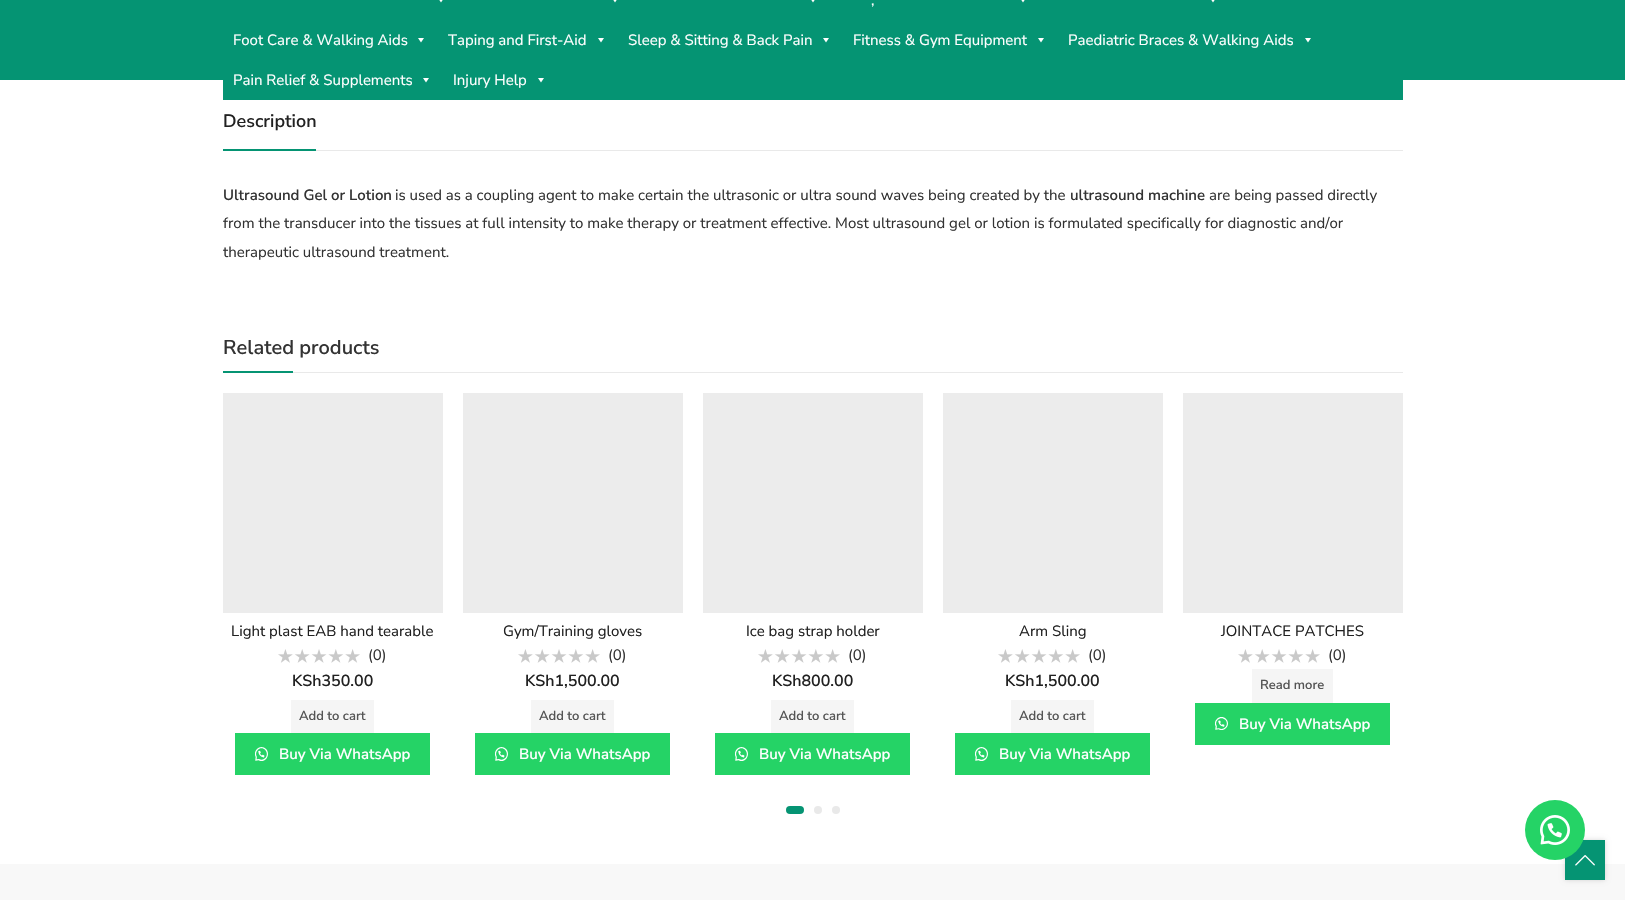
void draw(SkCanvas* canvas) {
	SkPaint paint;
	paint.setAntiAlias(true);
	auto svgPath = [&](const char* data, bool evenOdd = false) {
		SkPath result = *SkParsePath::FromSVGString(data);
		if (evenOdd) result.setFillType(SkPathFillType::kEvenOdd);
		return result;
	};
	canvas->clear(0xffffffff);
	paint.setColor(0xff059473);
	canvas->drawRect(SkRect::MakeXYWH(0, 0, 1625, 80), paint);
	canvas->drawRect(SkRect::MakeXYWH(223, 80, 1180, 20), paint);
	paint.setColor(0xffffffff);
	canvas->drawPath(svgPath("M444-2L441 2.5L438-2Z"), paint);
	canvas->drawPath(svgPath("M618-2L615 2.5L612-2Z"), paint);
	canvas->drawPath(svgPath("M816-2L813 2.5L810-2Z"), paint);
	canvas->drawPath(svgPath("M1216-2L1213 2.5L1210-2Z"), paint);
	canvas->drawPath(svgPath("M1026-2L1023 2.5L1020-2Z"), paint);
	SkFont f1(fontMgr->matchFamilyStyle("Nunito Sans", SkFontStyle::Normal()), 15);
	f1.setSubpixel(true);
	canvas->drawString(",", 871, 5, f1, paint);
	canvas->drawString("Foot Care & Walking Aids", 233, 45, f1, paint);
	canvas->drawPath(svgPath("M424 38L421 42.5L418 38Z"), paint);
	canvas->drawString("Taping and First-Aid", 448, 45, f1, paint);
	canvas->drawPath(svgPath("M604 38L601 42.5L598 38Z"), paint);
	canvas->drawString("Sleep & Sitting & Back Pain", 628, 45, f1, paint);
	canvas->drawPath(svgPath("M829 38L826 42.5L823 38Z"), paint);
	canvas->drawString("Fitness & Gym Equipment", 853, 45, f1, paint);
	canvas->drawPath(svgPath("M1044 38L1041 42.5L1038 38Z"), paint);
	canvas->drawString("Paediatric Braces & Walking Aids", 1068, 45, f1, paint);
	canvas->drawPath(svgPath("M1311 38L1308 42.5L1305 38Z"), paint);
	canvas->drawString("Pain Relief & Supplements", 233, 85, f1, paint);
	canvas->drawPath(svgPath("M429 78L426 82.5L423 78Z"), paint);
	canvas->drawString("Injury Help", 453, 85, f1, paint);
	canvas->drawPath(svgPath("M544 78L541 82.5L538 78Z"), paint);
	paint.setColor(0xffe9e9e9);
	canvas->drawRect(SkRect::MakeXYWH(316, 150, 1087, 1), paint);
	SkFont f2(fontMgr->matchFamilyStyle("Nunito Sans", SkFontStyle(600, SkFontStyle::kNormal_Width, SkFontStyle::kUpright_Slant)), 18);
	f2.setSubpixel(true);
	paint.setColor(0xff212121);
	canvas->drawString("Description", 223, 127, f2, paint);
	paint.setColor(0xff059473);
	canvas->drawRect(SkRect::MakeXYWH(223, 149, 93, 2), paint);
	SkFont f3(fontMgr->matchFamilyStyle("Nunito Sans", SkFontStyle(600, SkFontStyle::kNormal_Width, SkFontStyle::kUpright_Slant)), 15);
	f3.setSubpixel(true);
	paint.setColor(0xff333333);
	canvas->drawString("Ultrasound Gel or Lotion", 223, 200, f3, paint);
	canvas->drawString("is used as a coupling agent to make certain the ultrasonic or ultra sound waves being created by the", 395, 200, f1, paint);
	canvas->drawString("ultrasound machine", 1070, 200, f3, paint);
	canvas->drawString("are being passed directly", 1209, 200, f1, paint);
	canvas->drawString("from the transducer into the tissues at full intensity to make therapy or treatment effective. Most ultrasound gel or lotion is formulated specifically for diagnostic and/or", 223, 228, f1, paint);
	canvas->drawString("therapeutic ultrasound treatment.", 223, 257, f1, paint);
	paint.setColor(0xffe9e9e9);
	canvas->drawRect(SkRect::MakeXYWH(293, 372, 1110, 1), paint);
	SkFont f4(fontMgr->matchFamilyStyle("Nunito Sans", SkFontStyle(600, SkFontStyle::kNormal_Width, SkFontStyle::kUpright_Slant)), 20);
	f4.setSubpixel(true);
	paint.setColor(0xff333333);
	canvas->drawString("Related products", 223, 354, f4, paint);
	paint.setColor(0xff059473);
	canvas->drawRect(SkRect::MakeXYWH(223, 371, 70, 2), paint);
	paint.setColor(0xffececec);
	canvas->drawRect(SkRect::MakeXYWH(223, 393, 220, 220), paint);
	paint.setColor(0xff212121);
	canvas->drawString("Light plast EAB hand tearable", 231, 636, f1, paint);
	canvas->drawImageRect(SkImages::DeferredFromEncodedData(SkData::MakeFromFileName("img1.png")), SkRect::MakeXYWH(278, 649, 82, 14), SkSamplingOptions());
	paint.setColor(0xff333333);
	canvas->drawString("(0)", 368, 660, f1, paint);
	SkFont f5(fontMgr->matchFamilyStyle("Nunito Sans", SkFontStyle(600, SkFontStyle::kNormal_Width, SkFontStyle::kUpright_Slant)), 16);
	f5.setSubpixel(true);
	paint.setColor(0xff212121);
	canvas->drawString("KSh350.00", 292, 686, f5, paint);
	paint.setColor(0xfff5f5f5);
	canvas->drawRect(SkRect::MakeXYWH(291, 700, 83, 33), paint);
	SkFont f6(fontMgr->matchFamilyStyle("Nunito Sans", SkFontStyle(600, SkFontStyle::kNormal_Width, SkFontStyle::kUpright_Slant)), 13);
	f6.setSubpixel(true);
	paint.setColor(0xff545454);
	canvas->drawString("Add to cart", 299, 720, f6, paint);
	paint.setColor(0xff25d366);
	canvas->drawRect(SkRect::MakeXYWH(235, 733, 195, 42), paint);
	canvas->drawImageRect(SkImages::DeferredFromEncodedData(SkData::MakeFromFileName("img2.png")), SkRect::MakeXYWH(255, 747, 13, 14), SkSamplingOptions());
	paint.setColor(0xffffffff);
	canvas->drawString("Buy Via WhatsApp", 279, 759, f3, paint);
	paint.setColor(0xffececec);
	canvas->drawRect(SkRect::MakeXYWH(463, 393, 220, 220), paint);
	paint.setColor(0xff212121);
	canvas->drawString("Gym/Training gloves", 503, 636, f1, paint);
	canvas->drawImageRect(SkImages::DeferredFromEncodedData(SkData::MakeFromFileName("img1.png")), SkRect::MakeXYWH(518, 649, 82, 14), SkSamplingOptions());
	paint.setColor(0xff333333);
	canvas->drawString("(0)", 608, 660, f1, paint);
	paint.setColor(0xff212121);
	canvas->drawString("KSh1,500.00", 525, 686, f5, paint);
	paint.setColor(0xfff5f5f5);
	canvas->drawRect(SkRect::MakeXYWH(531, 700, 83, 33), paint);
	paint.setColor(0xff545454);
	canvas->drawString("Add to cart", 539, 720, f6, paint);
	paint.setColor(0xff25d366);
	canvas->drawRect(SkRect::MakeXYWH(475, 733, 195, 42), paint);
	canvas->drawImageRect(SkImages::DeferredFromEncodedData(SkData::MakeFromFileName("img2.png")), SkRect::MakeXYWH(495, 747, 13, 14), SkSamplingOptions());
	paint.setColor(0xffffffff);
	canvas->drawString("Buy Via WhatsApp", 519, 759, f3, paint);
	paint.setColor(0xffececec);
	canvas->drawRect(SkRect::MakeXYWH(703, 393, 220, 220), paint);
	paint.setColor(0xff212121);
	canvas->drawString("Ice bag strap holder", 746, 636, f1, paint);
	canvas->drawImageRect(SkImages::DeferredFromEncodedData(SkData::MakeFromFileName("img1.png")), SkRect::MakeXYWH(758, 649, 82, 14), SkSamplingOptions());
	paint.setColor(0xff333333);
	canvas->drawString("(0)", 848, 660, f1, paint);
	paint.setColor(0xff212121);
	canvas->drawString("KSh800.00", 772, 686, f5, paint);
	paint.setColor(0xfff5f5f5);
	canvas->drawRect(SkRect::MakeXYWH(771, 700, 83, 33), paint);
	paint.setColor(0xff545454);
	canvas->drawString("Add to cart", 779, 720, f6, paint);
	paint.setColor(0xff25d366);
	canvas->drawRect(SkRect::MakeXYWH(715, 733, 195, 42), paint);
	canvas->drawImageRect(SkImages::DeferredFromEncodedData(SkData::MakeFromFileName("img2.png")), SkRect::MakeXYWH(735, 747, 13, 14), SkSamplingOptions());
	paint.setColor(0xffffffff);
	canvas->drawString("Buy Via WhatsApp", 759, 759, f3, paint);
	paint.setColor(0xffececec);
	canvas->drawRect(SkRect::MakeXYWH(943, 393, 220, 220), paint);
	paint.setColor(0xff212121);
	canvas->drawString("Arm Sling", 1019, 636, f1, paint);
	canvas->drawImageRect(SkImages::DeferredFromEncodedData(SkData::MakeFromFileName("img1.png")), SkRect::MakeXYWH(998, 649, 82, 14), SkSamplingOptions());
	paint.setColor(0xff333333);
	canvas->drawString("(0)", 1088, 660, f1, paint);
	paint.setColor(0xff212121);
	canvas->drawString("KSh1,500.00", 1005, 686, f5, paint);
	paint.setColor(0xfff5f5f5);
	canvas->drawRect(SkRect::MakeXYWH(1011, 700, 83, 33), paint);
	paint.setColor(0xff545454);
	canvas->drawString("Add to cart", 1019, 720, f6, paint);
	paint.setColor(0xff25d366);
	canvas->drawRect(SkRect::MakeXYWH(955, 733, 195, 42), paint);
	canvas->drawImageRect(SkImages::DeferredFromEncodedData(SkData::MakeFromFileName("img2.png")), SkRect::MakeXYWH(975, 747, 13, 14), SkSamplingOptions());
	paint.setColor(0xffffffff);
	canvas->drawString("Buy Via WhatsApp", 999, 759, f3, paint);
	paint.setColor(0xffececec);
	canvas->drawRect(SkRect::MakeXYWH(1183, 393, 220, 220), paint);
	paint.setColor(0xff212121);
	canvas->drawString("JOINTACE PATCHES", 1221, 636, f1, paint);
	canvas->drawImageRect(SkImages::DeferredFromEncodedData(SkData::MakeFromFileName("img1.png")), SkRect::MakeXYWH(1238, 649, 82, 14), SkSamplingOptions());
	paint.setColor(0xff333333);
	canvas->drawString("(0)", 1328, 660, f1, paint);
	paint.setColor(0xfff5f5f5);
	canvas->drawRect(SkRect::MakeXYWH(1252, 669, 81, 34), paint);
	paint.setColor(0xff545454);
	canvas->drawString("Read more", 1260, 689, f6, paint);
	paint.setColor(0xff25d366);
	canvas->drawRect(SkRect::MakeXYWH(1195, 703, 195, 42), paint);
	canvas->drawImageRect(SkImages::DeferredFromEncodedData(SkData::MakeFromFileName("img3.png")), SkRect::MakeXYWH(1215, 717, 13, 13), SkSamplingOptions());
	paint.setColor(0xffffffff);
	canvas->drawString("Buy Via WhatsApp", 1239, 729, f3, paint);
	paint.setColor(0xff059473);
	canvas->drawRoundRect(SkRect::MakeXYWH(786, 806, 18, 8), 4, 4, paint);
	paint.setColor(0xffe9e9e9);
	canvas->drawCircle(818, 810, 4, paint);
	canvas->drawCircle(836, 810, 4, paint);
	paint.setColor(0xfff8f8f8);
	canvas->drawRect(SkRect::MakeXYWH(0, 864, 1625, 36), paint);
	paint.setColor(0x26000000);
	paint.setMaskFilter(SkMaskFilter::MakeBlur(kNormal_SkBlurStyle, 2.5));
	canvas->drawRect(SkRect::MakeXYWH(1565, 840, 40, 40), paint);
	paint.setMaskFilter(nullptr);
	paint.setColor(0xff059473);
	canvas->drawRect(SkRect::MakeXYWH(1565, 840, 40, 40), paint);
	canvas->drawImageRect(SkImages::DeferredFromEncodedData(SkData::MakeFromFileName("img5.png")), SkRect::MakeXYWH(1575, 855, 20, 11), SkSamplingOptions());
	paint.setColor(0xff25d366);
	canvas->drawCircle(1555, 830, 30, paint);
	canvas->drawImageRect(SkImages::DeferredFromEncodedData(SkData::MakeFromFileName("img4.png")), SkRect::MakeXYWH(1540, 815, 30, 30), SkSamplingOptions());
}
